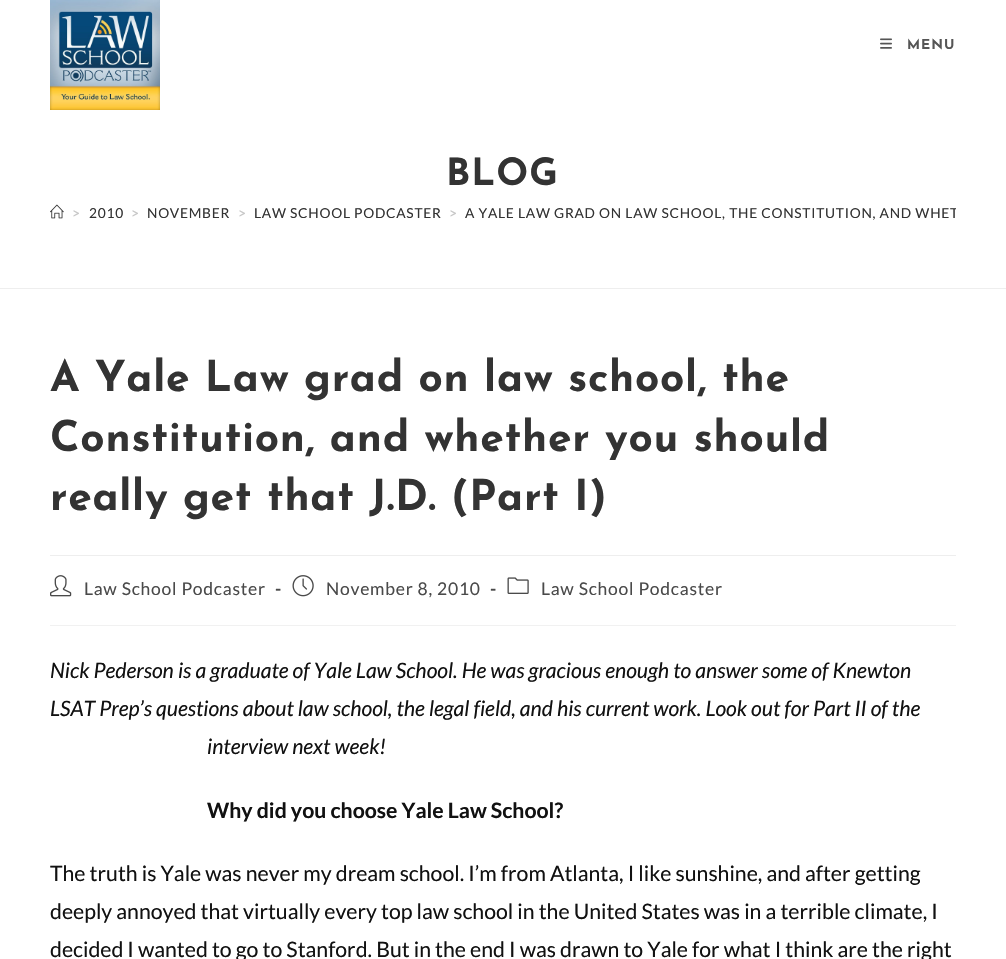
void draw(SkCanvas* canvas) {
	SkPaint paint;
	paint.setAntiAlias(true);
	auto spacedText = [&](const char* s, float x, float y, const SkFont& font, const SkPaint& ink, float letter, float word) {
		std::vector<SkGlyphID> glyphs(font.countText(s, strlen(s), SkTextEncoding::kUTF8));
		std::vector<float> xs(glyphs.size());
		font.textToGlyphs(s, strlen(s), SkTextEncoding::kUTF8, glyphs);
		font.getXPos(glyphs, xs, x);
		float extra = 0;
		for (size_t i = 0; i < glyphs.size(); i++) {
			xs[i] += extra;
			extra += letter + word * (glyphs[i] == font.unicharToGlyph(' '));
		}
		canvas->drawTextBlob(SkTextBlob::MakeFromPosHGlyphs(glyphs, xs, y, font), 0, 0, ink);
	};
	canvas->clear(0xffffffff);
	canvas->drawImageRect(SkImages::DeferredFromEncodedData(SkData::MakeFromFileName("img1.png")), SkRect::MakeXYWH(50, 0, 110, 110), SkSamplingOptions());
	canvas->drawImageRect(SkImages::DeferredFromEncodedData(SkData::MakeFromFileName("img2.png")), SkRect::MakeXYWH(880, 38, 12, 11), SkSamplingOptions());
	SkFont f1(fontMgr->matchFamilyStyle("Josefin Sans", SkFontStyle::Bold()), 13.75);
	f1.setSubpixel(true);
	paint.setColor(0xff555555);
	spacedText("MENU", 907, 49, f1, paint, 1, 0);
	paint.setColor(0xffeeeeee);
	canvas->drawRect(SkRect::MakeXYWH(0, 288, 1006, 1), paint);
	SkFont f2(fontMgr->matchFamilyStyle("Josefin Sans", SkFontStyle::Bold()), 37.5);
	f2.setSubpixel(true);
	paint.setColor(0xff333333);
	spacedText("BLOG", 446, 185, f2, paint, 1, 0);
	canvas->drawImageRect(SkImages::DeferredFromEncodedData(SkData::MakeFromFileName("img3.png")), SkRect::MakeXYWH(50, 204, 14, 15), SkSamplingOptions());
	SkFont f3(fontMgr->matchFamilyStyle("Lato", SkFontStyle::Normal()), 13.75);
	f3.setSubpixel(true);
	paint.setColor(0xffc6c6c6);
	spacedText(">", 72, 218, f3, paint, 0.75, 0);
	paint.setColor(0xff333333);
	spacedText("2010", 89, 218, f3, paint, 0.75, 0);
	paint.setColor(0xffc6c6c6);
	spacedText(">", 131, 218, f3, paint, 0.75, 0);
	paint.setColor(0xff333333);
	spacedText("NOVEMBER", 147, 218, f3, paint, 0.75, 0);
	paint.setColor(0xffc6c6c6);
	spacedText(">", 238, 218, f3, paint, 0.75, 0);
	paint.setColor(0xff333333);
	spacedText("LAW SCHOOL PODCASTER", 254, 218, f3, paint, 0.75, 0);
	paint.setColor(0xffc6c6c6);
	spacedText(">", 449, 218, f3, paint, 0.75, 0);
	canvas->save();
	canvas->clipRect(SkRect::MakeXYWH(50, 203, 906, 40));
	paint.setColor(0xff333333);
	spacedText("A YALE LAW GRAD ON LAW SCHOOL, THE CONSTITUTION, AND WHET", 465, 218, f3, paint, 0.75, 0);
	canvas->restore();
	paint.setColor(0xffeeeeee);
	canvas->drawRect(SkRect::MakeXYWH(50, 555, 906, 1), paint);
	SkFont f4(fontMgr->matchFamilyStyle("Josefin Sans", SkFontStyle::Bold()), 42.5);
	f4.setSubpixel(true);
	paint.setColor(0xff333333);
	spacedText("A Yale Law grad on law school, the", 50, 391, f4, paint, 0.75, 0);
	spacedText("Constitution, and whether you should", 50, 451, f4, paint, 0.75, 0);
	spacedText("really get that J.D. (Part I)", 50, 510, f4, paint, 0.75, 0);
	paint.setColor(0xfff1f1f1);
	canvas->drawRect(SkRect::MakeXYWH(50, 625, 906, 1), paint);
	canvas->drawImageRect(SkImages::DeferredFromEncodedData(SkData::MakeFromFileName("img4.png")), SkRect::MakeXYWH(50, 575, 22, 22), SkSamplingOptions());
	SkFont f5(fontMgr->matchFamilyStyle("Lato", SkFontStyle::Normal()), 17.5);
	f5.setSubpixel(true);
	paint.setColor(0xff4a4a4a);
	spacedText("Law School Podcaster", 84, 595, f5, paint, 0.75, 0);
	SkFont f6(fontMgr->matchFamilyStyle("Lato", SkFontStyle::Bold()), 17.5);
	f6.setSubpixel(true);
	spacedText("-", 275, 595, f6, paint, 0.75, 0);
	canvas->drawImageRect(SkImages::DeferredFromEncodedData(SkData::MakeFromFileName("img5.png")), SkRect::MakeXYWH(292, 575, 22, 22), SkSamplingOptions());
	spacedText("November 8, 2010", 326, 595, f5, paint, 0.75, 0);
	spacedText("-", 490, 595, f6, paint, 0.75, 0);
	canvas->drawImageRect(SkImages::DeferredFromEncodedData(SkData::MakeFromFileName("img6.png")), SkRect::MakeXYWH(507, 577, 22, 17), SkSamplingOptions());
	spacedText("Law School Podcaster", 541, 595, f5, paint, 0.75, 0);
	SkFont f7(fontMgr->matchFamilyStyle("Lato", SkFontStyle::Italic()), 21.25);
	f7.setSubpixel(true);
	paint.setColor(0xff111111);
	canvas->drawString("Nick Pederson is a graduate of Yale Law School. He was gracious enough to answer some of Knewton", 50, 678, f7, paint);
	canvas->drawString("LSAT Prep’s questions about law school, the legal field, and his current work. Look out for Part II of the", 50, 716, f7, paint);
	canvas->drawString("interview next week!", 207, 754, f7, paint);
	SkFont f8(fontMgr->matchFamilyStyle("Lato", SkFontStyle::Bold()), 21.25);
	f8.setSubpixel(true);
	canvas->drawString("Why did you choose Yale Law School?", 207, 818, f8, paint);
	SkFont f9(fontMgr->matchFamilyStyle("Lato", SkFontStyle::Normal()), 21.25);
	f9.setSubpixel(true);
	canvas->drawString("The truth is Yale was never my dream school. I’m from Atlanta, I like sunshine, and after getting", 50, 881, f9, paint);
	canvas->drawString("deeply annoyed that virtually every top law school in the United States was in a terrible climate, I", 50, 919, f9, paint);
	canvas->drawString("decided I wanted to go to Stanford. But in the end I was drawn to Yale for what I think are the right", 50, 957, f9, paint);
}
